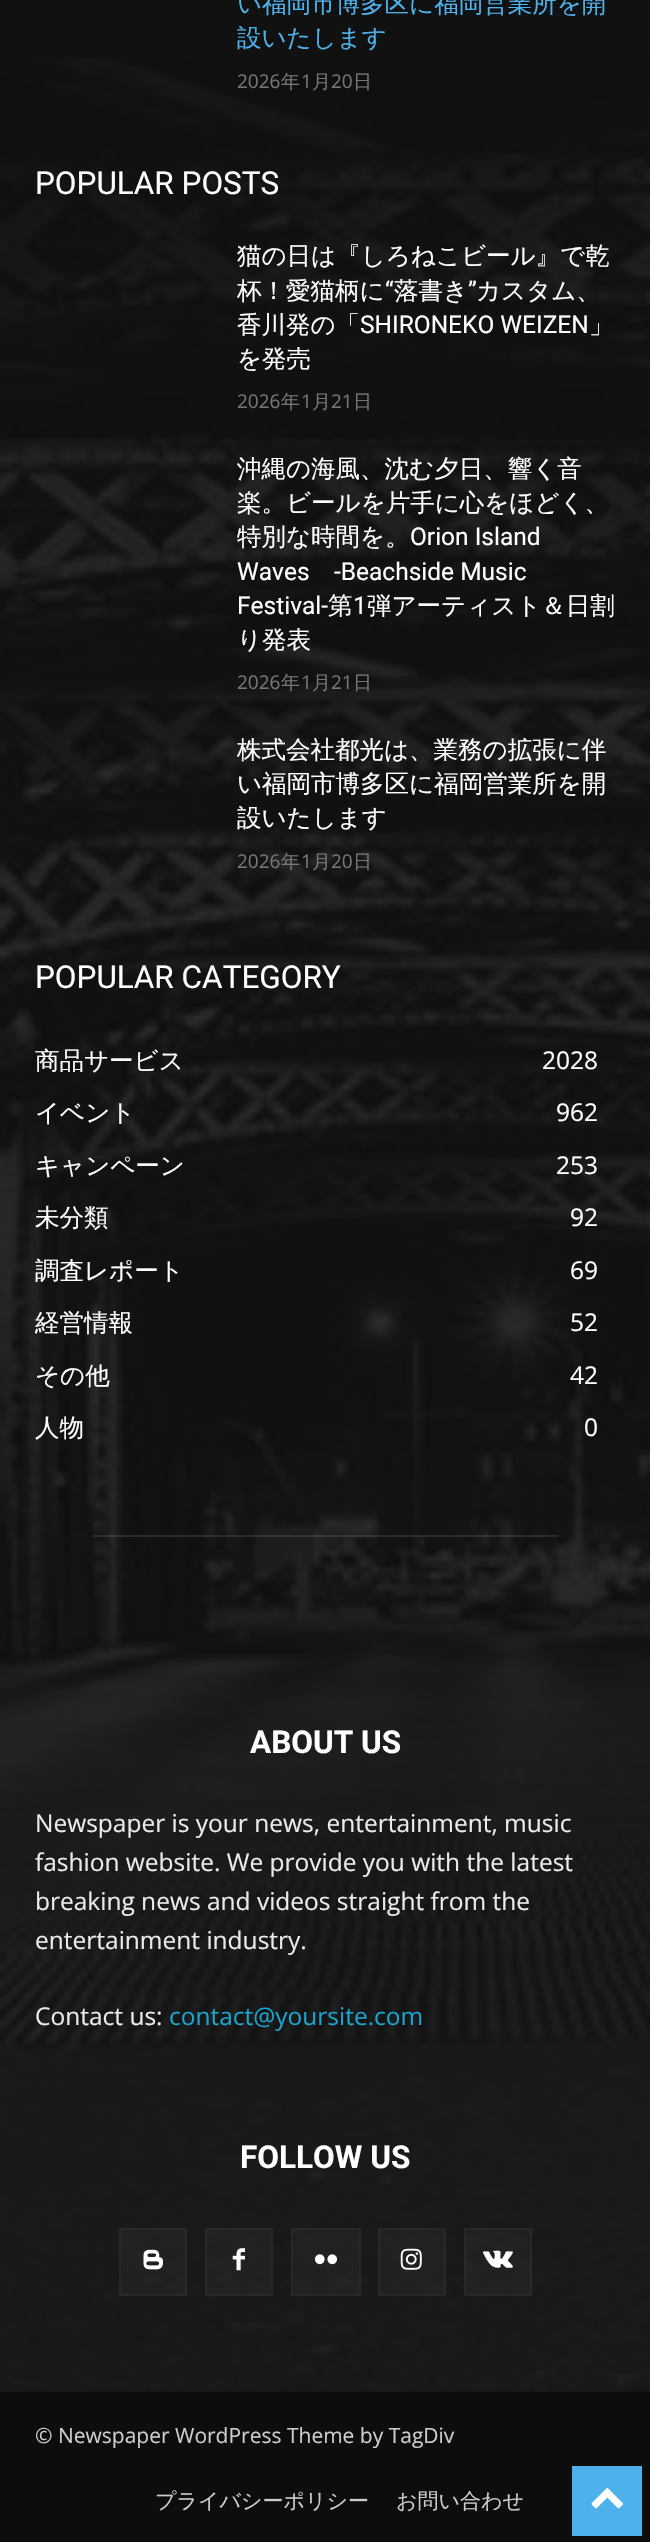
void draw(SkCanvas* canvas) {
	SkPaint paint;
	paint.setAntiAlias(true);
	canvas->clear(0xff111111);
	SkFont f1(fontMgr->matchFamilyStyle("WenQuanYi Zen Hei", SkFontStyle(500, SkFontStyle::kNormal_Width, SkFontStyle::kUpright_Slant)), 24.5);
	f1.setSubpixel(true);
	paint.setColor(0xff4db2ec);
	canvas->drawString("い福岡市博多区に福岡営業所を開", 237, 12, f1, paint);
	canvas->drawString("設いたします", 237, 46, f1, paint);
	canvas->drawImageRect(SkImages::DeferredFromEncodedData(SkData::MakeFromFileName("img6.png")), SkRect::MakeXYWH(0, 58, 650, 2334), SkSamplingOptions());
	SkFont f2(fontMgr->matchFamilyStyle("Open Sans", SkFontStyle::Normal()), 19);
	f2.setSubpixel(true);
	paint.setColor(0xff767676);
	canvas->drawString("2026", 237, 88, f2, paint);
	SkFont f3(fontMgr->matchFamilyStyle("WenQuanYi Zen Hei", SkFontStyle(500, SkFontStyle::kNormal_Width, SkFontStyle::kUpright_Slant)), 19);
	f3.setSubpixel(true);
	canvas->drawString("年", 281, 88, f3, paint);
	canvas->drawString("1", 301, 88, f2, paint);
	canvas->drawString("月", 312, 88, f3, paint);
	canvas->drawString("20", 331, 88, f2, paint);
	canvas->drawString("日", 353, 88, f3, paint);
	SkFont f4(fontMgr->matchFamilyStyle("Roboto", SkFontStyle::Normal()), 31.5);
	f4.setSubpixel(true);
	paint.setColor(0xffffffff);
	canvas->drawString("POPULAR POSTS", 35, 194, f4, paint);
	canvas->drawString("猫の日は『しろねこビール』で乾", 237, 264, f1, paint);
	canvas->drawString("杯！愛猫柄に", 237, 299, f1, paint);
	SkFont f5(fontMgr->matchFamilyStyle("Roboto", SkFontStyle::Normal()), 24.5);
	f5.setSubpixel(true);
	canvas->drawString("“", 385, 299, f5, paint);
	canvas->drawString("落書き", 394, 299, f1, paint);
	canvas->drawString("”", 468, 299, f5, paint);
	canvas->drawString("カスタム、", 476, 299, f1, paint);
	canvas->drawString("香川発の「", 237, 333, f1, paint);
	canvas->drawString("SHIRONEKO WEIZEN", 360, 333, f5, paint);
	canvas->drawString("」", 589, 333, f1, paint);
	canvas->drawString("を発売", 237, 367, f1, paint);
	paint.setColor(0xff767676);
	canvas->drawString("2026", 237, 408, f2, paint);
	canvas->drawString("年", 281, 408, f3, paint);
	canvas->drawString("1", 301, 408, f2, paint);
	canvas->drawString("月", 312, 408, f3, paint);
	canvas->drawString("21", 331, 408, f2, paint);
	canvas->drawString("日", 353, 408, f3, paint);
	paint.setColor(0xffffffff);
	canvas->drawString("沖縄の海風、沈む夕日、響く音", 237, 477, f1, paint);
	canvas->drawString("楽。ビールを片手に心をほどく、", 237, 511, f1, paint);
	canvas->drawString("特別な時間を。", 237, 545, f1, paint);
	canvas->drawString("Orion Island", 410, 545, f5, paint);
	canvas->drawString("Waves", 237, 580, f5, paint);
	canvas->drawString("-Beachside Music", 334, 580, f5, paint);
	canvas->drawString("Festival-", 237, 614, f5, paint);
	canvas->drawString("第", 328, 614, f1, paint);
	canvas->drawString("1", 353, 614, f5, paint);
	canvas->drawString("弾アーティスト＆日割", 367, 614, f1, paint);
	canvas->drawString("り発表", 237, 648, f1, paint);
	paint.setColor(0xff767676);
	canvas->drawString("2026", 237, 689, f2, paint);
	canvas->drawString("年", 281, 689, f3, paint);
	canvas->drawString("1", 301, 689, f2, paint);
	canvas->drawString("月", 312, 689, f3, paint);
	canvas->drawString("21", 331, 689, f2, paint);
	canvas->drawString("日", 353, 689, f3, paint);
	paint.setColor(0xffffffff);
	canvas->drawString("株式会社都光は、業務の拡張に伴", 237, 758, f1, paint);
	canvas->drawString("い福岡市博多区に福岡営業所を開", 237, 792, f1, paint);
	canvas->drawString("設いたします", 237, 826, f1, paint);
	paint.setColor(0xff767676);
	canvas->drawString("2026", 237, 868, f2, paint);
	canvas->drawString("年", 281, 868, f3, paint);
	canvas->drawString("1", 301, 868, f2, paint);
	canvas->drawString("月", 312, 868, f3, paint);
	canvas->drawString("20", 331, 868, f2, paint);
	canvas->drawString("日", 353, 868, f3, paint);
	paint.setColor(0xffffffff);
	canvas->drawString("POPULAR CATEGORY", 35, 988, f4, paint);
	canvas->drawString("商品サービス", 35, 1069, f1, paint);
	SkFont f6(fontMgr->matchFamilyStyle("Open Sans", SkFontStyle::Normal()), 24.5);
	f6.setSubpixel(true);
	canvas->drawString("2028", 542, 1069, f6, paint);
	canvas->drawString("イベント", 35, 1121, f1, paint);
	canvas->drawString("962", 556, 1121, f6, paint);
	canvas->drawString("キャンペーン", 35, 1174, f1, paint);
	canvas->drawString("253", 556, 1174, f6, paint);
	canvas->drawString("未分類", 35, 1226, f1, paint);
	canvas->drawString("92", 570, 1226, f6, paint);
	canvas->drawString("調査レポート", 35, 1279, f1, paint);
	canvas->drawString("69", 570, 1279, f6, paint);
	canvas->drawString("経営情報", 35, 1331, f1, paint);
	canvas->drawString("52", 570, 1331, f6, paint);
	canvas->drawString("その他", 35, 1384, f1, paint);
	canvas->drawString("42", 570, 1384, f6, paint);
	canvas->drawString("人物", 35, 1436, f1, paint);
	canvas->drawString("0", 584, 1436, f6, paint);
	paint.setColor(0x1affffff);
	canvas->drawRect(SkRect::MakeXYWH(93, 1535, 465, 2), paint);
	SkFont f7(fontMgr->matchFamilyStyle("Roboto", SkFontStyle::Bold()), 31.5);
	f7.setSubpixel(true);
	paint.setColor(0xffffffff);
	canvas->drawString("ABOUT US", 250, 1753, f7, paint);
	paint.setColor(0xffeaeaea);
	canvas->drawString("Newspaper is your news, entertainment, music", 35, 1832, f6, paint);
	canvas->drawString("fashion website. We provide you with the latest", 35, 1871, f6, paint);
	canvas->drawString("breaking news and videos straight from the", 35, 1910, f6, paint);
	canvas->drawString("entertainment industry.", 35, 1949, f6, paint);
	canvas->drawString("Contact us:", 35, 2025, f6, paint);
	paint.setColor(0xff1aa4ce);
	canvas->drawString("contact@yoursite.com", 169, 2025, f6, paint);
	paint.setColor(0xffffffff);
	canvas->drawString("FOLLOW US", 240, 2168, f7, paint);
	paint.setColor(0x08ffffff);
	canvas->drawRect(SkRect::MakeXYWH(119, 2228, 68, 68), paint);
	paint.setStroke(true);
	paint.setStrokeWidth(2);
	canvas->drawRect(SkRect::MakeXYWH(120, 2229, 66, 66), paint);
	canvas->drawImageRect(SkImages::DeferredFromEncodedData(SkData::MakeFromFileName("img1.png")), SkRect::MakeXYWH(143, 2249, 20, 21), SkSamplingOptions());
	paint.setStroke(false);
	canvas->drawRect(SkRect::MakeXYWH(205, 2228, 68, 68), paint);
	paint.setStroke(true);
	canvas->drawRect(SkRect::MakeXYWH(206, 2229, 66, 66), paint);
	canvas->drawImageRect(SkImages::DeferredFromEncodedData(SkData::MakeFromFileName("img2.png")), SkRect::MakeXYWH(232, 2248, 13, 23), SkSamplingOptions());
	paint.setStroke(false);
	canvas->drawRect(SkRect::MakeXYWH(291, 2228, 70, 68), paint);
	paint.setStroke(true);
	canvas->drawRect(SkRect::MakeXYWH(292, 2229, 68, 66), paint);
	canvas->drawImageRect(SkImages::DeferredFromEncodedData(SkData::MakeFromFileName("img3.png")), SkRect::MakeXYWH(315, 2254, 23, 11), SkSamplingOptions());
	paint.setStroke(false);
	canvas->drawRect(SkRect::MakeXYWH(378, 2228, 68, 68), paint);
	paint.setStroke(true);
	canvas->drawRect(SkRect::MakeXYWH(379, 2229, 66, 66), paint);
	canvas->drawImageRect(SkImages::DeferredFromEncodedData(SkData::MakeFromFileName("img4.png")), SkRect::MakeXYWH(400, 2248, 22, 22), SkSamplingOptions());
	paint.setStroke(false);
	canvas->drawRect(SkRect::MakeXYWH(464, 2228, 68, 68), paint);
	paint.setStroke(true);
	canvas->drawRect(SkRect::MakeXYWH(465, 2229, 66, 66), paint);
	canvas->drawImageRect(SkImages::DeferredFromEncodedData(SkData::MakeFromFileName("img5.png")), SkRect::MakeXYWH(483, 2250, 30, 18), SkSamplingOptions());
	paint.setStroke(false);
	paint.setColor(0xff0d0d0d);
	canvas->drawRect(SkRect::MakeXYWH(0, 2392, 650, 150), paint);
	SkFont f8(fontMgr->matchFamilyStyle("Open Sans", SkFontStyle::Normal()), 21);
	f8.setSubpixel(true);
	paint.setColor(0xffcccccc);
	canvas->drawString("© Newspaper WordPress Theme by TagDiv", 35, 2443, f8, paint);
	SkFont f9(fontMgr->matchFamilyStyle("WenQuanYi Zen Hei", SkFontStyle(500, SkFontStyle::kNormal_Width, SkFontStyle::kUpright_Slant)), 21);
	f9.setSubpixel(true);
	canvas->drawString("プライバシーポリシー", 155, 2508, f9, paint);
	canvas->drawString("お問い合わせ", 396, 2508, f9, paint);
	paint.setColor(0xff4db2ec);
	canvas->drawRect(SkRect::MakeXYWH(572, 2466, 70, 70), paint);
	canvas->drawImageRect(SkImages::DeferredFromEncodedData(SkData::MakeFromFileName("img7.png")), SkRect::MakeXYWH(591, 2488, 32, 21), SkSamplingOptions());
}
